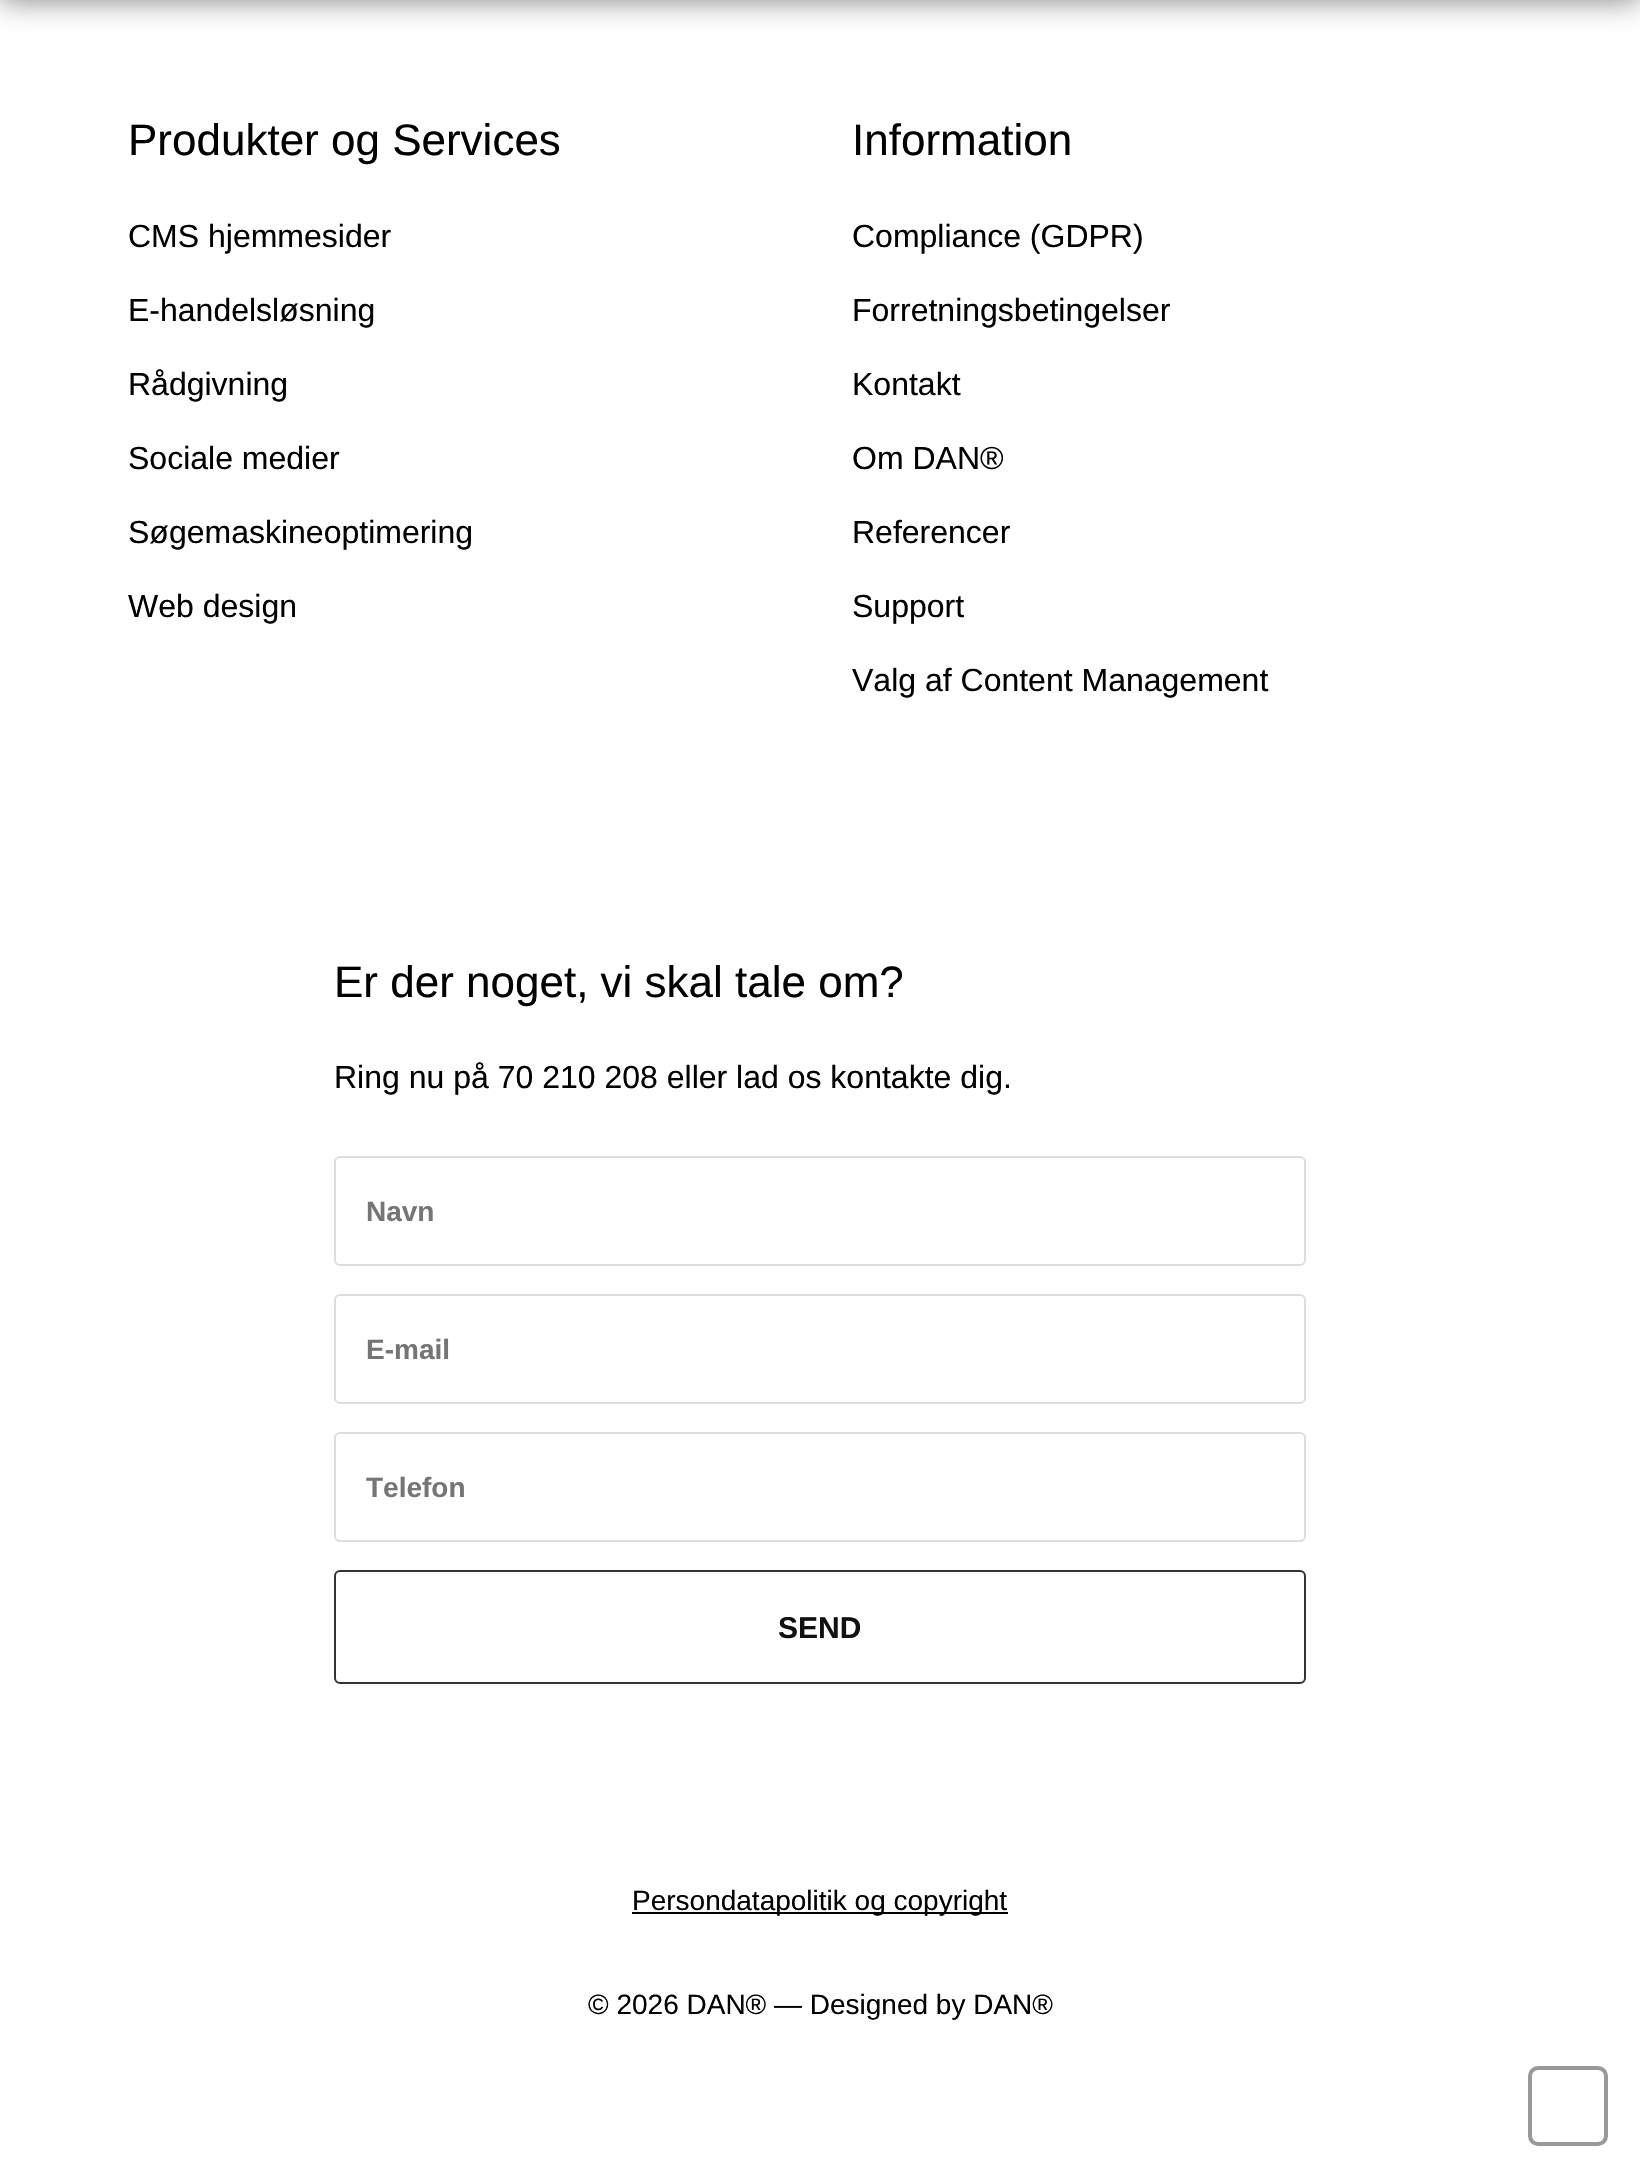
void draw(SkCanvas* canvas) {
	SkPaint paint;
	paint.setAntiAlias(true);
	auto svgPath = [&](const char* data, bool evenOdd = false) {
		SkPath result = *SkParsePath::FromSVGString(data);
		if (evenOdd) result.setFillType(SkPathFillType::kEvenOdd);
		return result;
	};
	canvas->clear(0xffffffff);
	paint.setColor(0x80000000);
	paint.setMaskFilter(SkMaskFilter::MakeBlur(kNormal_SkBlurStyle, 15));
	canvas->drawRect(SkRect::MakeXYWH(0, -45, 1640, 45), paint);
	paint.setMaskFilter(nullptr);
	SkFont f1(fontMgr->matchFamilyStyle("Liberation Sans", SkFontStyle::Normal()), 44);
	f1.setSubpixel(true);
	paint.setColor(0xff000000);
	canvas->drawString("Produkter og Services", 128, 155, f1, paint);
	SkFont f2(fontMgr->matchFamilyStyle("Liberation Sans", SkFontStyle::Normal()), 32);
	f2.setSubpixel(true);
	canvas->drawString("CMS hjemmesider", 128, 247, f2, paint);
	canvas->drawString("E-handelsløsning", 128, 321, f2, paint);
	canvas->drawString("Rådgivning", 128, 395, f2, paint);
	canvas->drawString("Sociale medier", 128, 469, f2, paint);
	canvas->drawString("Søgemaskineoptimering", 128, 543, f2, paint);
	canvas->drawString("Web design", 128, 617, f2, paint);
	canvas->drawString("Information", 852, 155, f1, paint);
	canvas->drawString("Compliance (GDPR)", 852, 247, f2, paint);
	canvas->drawString("Forretningsbetingelser", 852, 321, f2, paint);
	canvas->drawString("Kontakt", 852, 395, f2, paint);
	canvas->drawString("Om DAN®", 852, 469, f2, paint);
	canvas->drawString("Referencer", 852, 543, f2, paint);
	canvas->drawString("Support", 852, 617, f2, paint);
	canvas->drawString("Valg af Content Management", 852, 691, f2, paint);
	canvas->drawString("Er der noget, vi skal tale om?", 334, 997, f1, paint);
	canvas->drawString("Ring nu på 70 210 208 eller lad os kontakte dig.", 334, 1088, f2, paint);
	paint.setStroke(true);
	paint.setStrokeWidth(2);
	paint.setColor(0xffdddddd);
	canvas->drawRoundRect(SkRect::MakeXYWH(335, 1157, 970, 108), 5, 5, paint);
	SkFont f3(fontMgr->matchFamilyStyle("Liberation Sans", SkFontStyle::Bold()), 28);
	f3.setSubpixel(true);
	paint.setStroke(false);
	paint.setColor(0xff757575);
	canvas->drawString("Navn", 366, 1221, f3, paint);
	paint.setStroke(true);
	paint.setColor(0xffdddddd);
	canvas->drawRoundRect(SkRect::MakeXYWH(335, 1295, 970, 108), 5, 5, paint);
	paint.setStroke(false);
	paint.setColor(0xff757575);
	canvas->drawString("E-mail", 366, 1359, f3, paint);
	paint.setStroke(true);
	paint.setColor(0xffdddddd);
	canvas->drawRoundRect(SkRect::MakeXYWH(335, 1433, 970, 108), 5, 5, paint);
	paint.setStroke(false);
	paint.setColor(0xff757575);
	canvas->drawString("Telefon", 366, 1497, f3, paint);
	paint.setStroke(true);
	paint.setColor(0xff333333);
	canvas->drawRoundRect(SkRect::MakeXYWH(335, 1571, 970, 112), 5, 5, paint);
	SkFont f4(fontMgr->matchFamilyStyle("Liberation Sans", SkFontStyle::Bold()), 30);
	f4.setSubpixel(true);
	paint.setStroke(false);
	paint.setColor(0xff111111);
	canvas->drawString("SEND", 778, 1638, f4, paint);
	paint.setColor(0xff000000);
	canvas->drawRect(SkRect::MakeXYWH(632, 1912, 376, 2), paint);
	SkFont f5(fontMgr->matchFamilyStyle("Liberation Sans", SkFontStyle::Normal()), 28);
	f5.setSubpixel(true);
	canvas->drawString("Persondatapolitik og copyright", 632, 1910, f5, paint);
	canvas->drawString("© 2026 DAN® — Designed by DAN®", 588, 2014, f5, paint);
	paint.setStroke(true);
	paint.setStrokeWidth(4);
	paint.setColor(0xff999999);
	canvas->drawPath(svgPath("M1598 2144H1538C1533.5 2144 1530 2140.5 1530 2136V2076C1530 2071.5 1533.5 2068 1538 2068H1598C1602.5 2068 1606 2071.5 1606 2076V2136C1606 2140.5 1602.5 2144 1598 2144Z"), paint);
}
